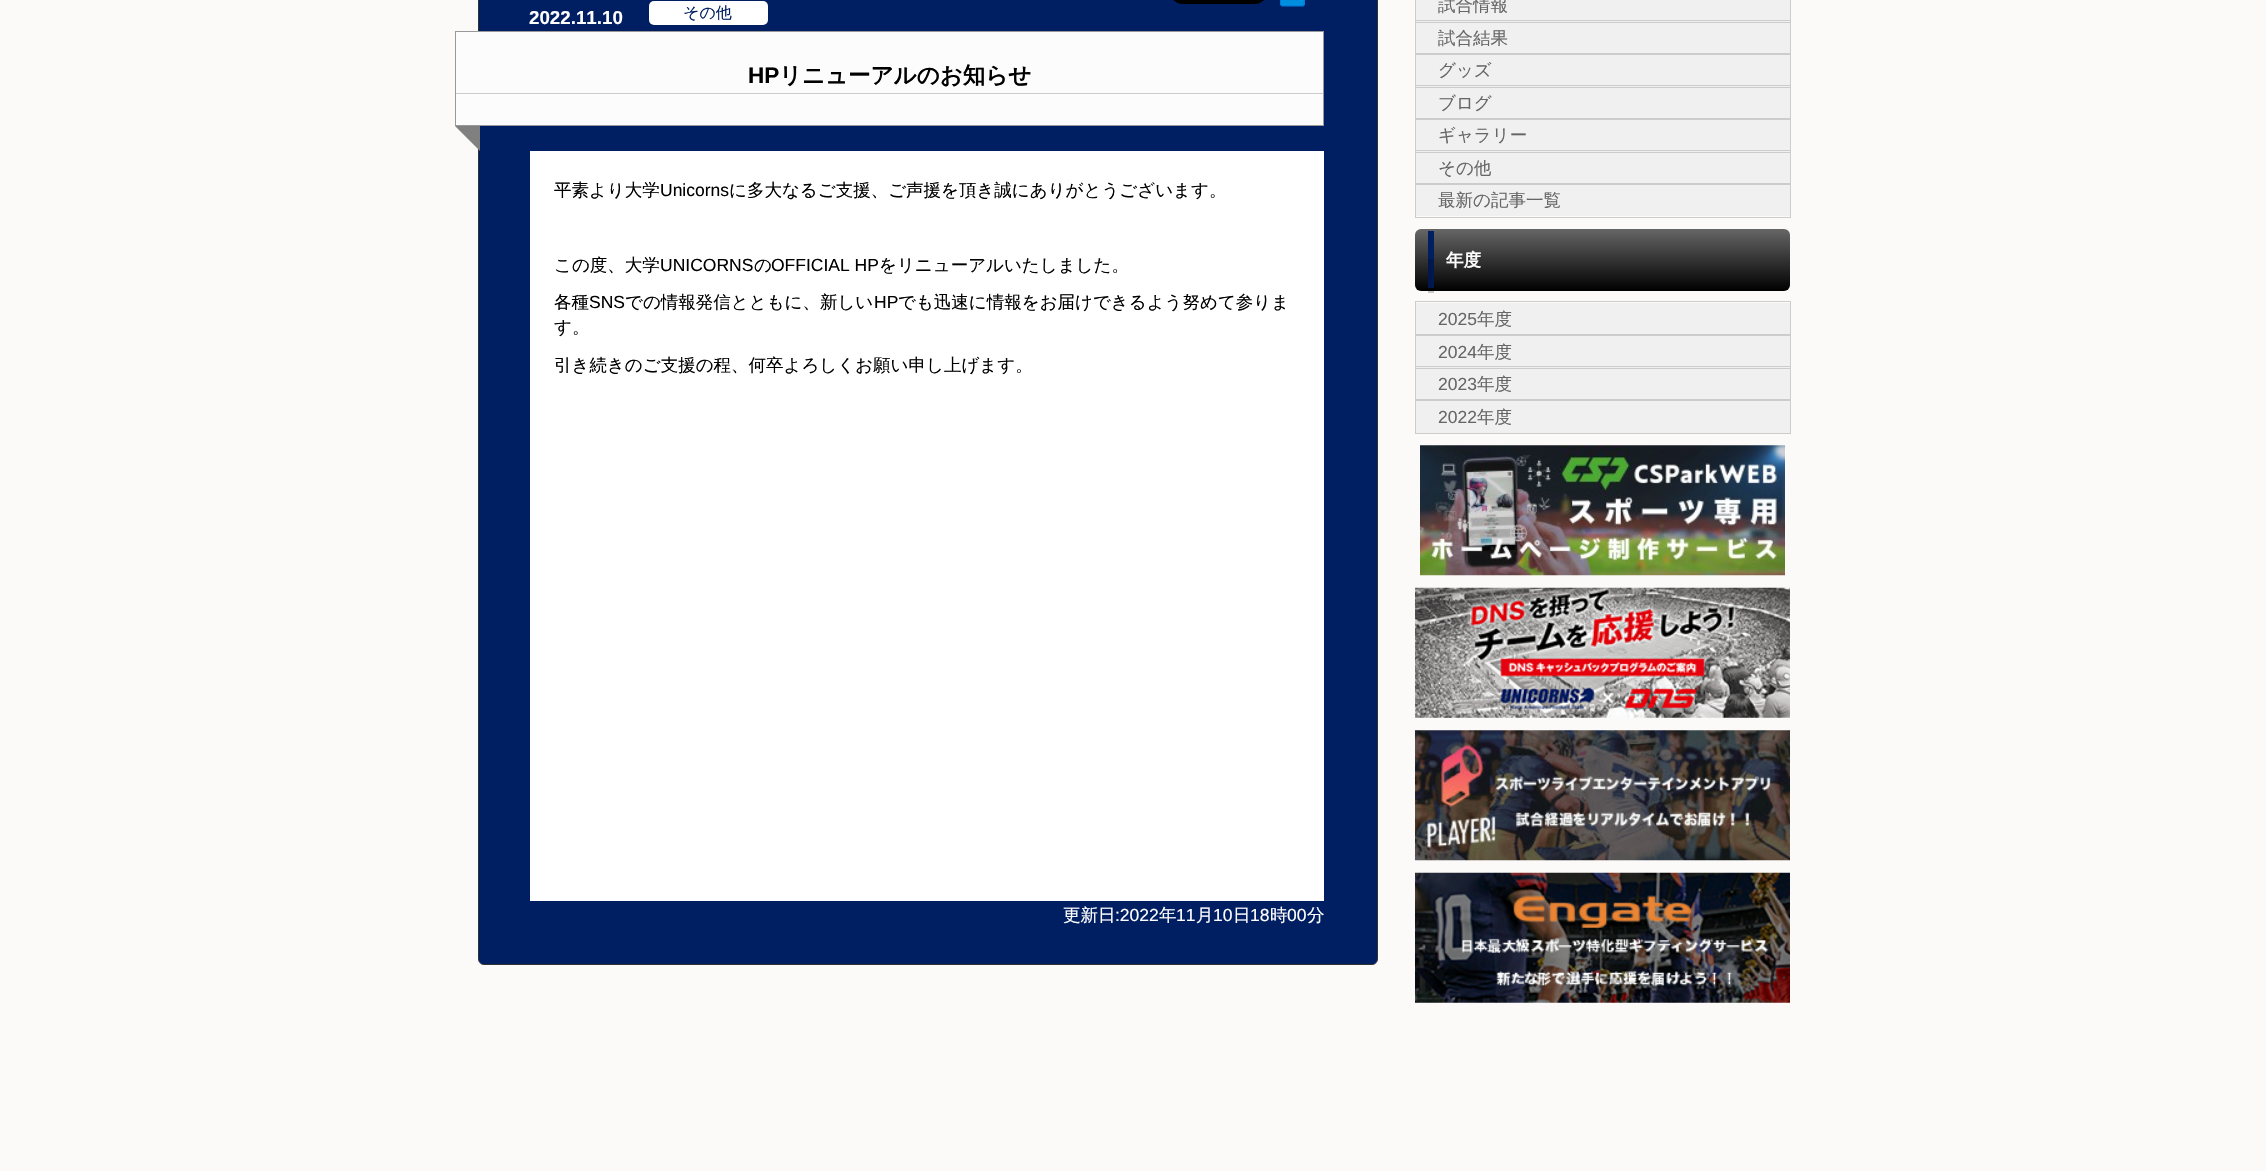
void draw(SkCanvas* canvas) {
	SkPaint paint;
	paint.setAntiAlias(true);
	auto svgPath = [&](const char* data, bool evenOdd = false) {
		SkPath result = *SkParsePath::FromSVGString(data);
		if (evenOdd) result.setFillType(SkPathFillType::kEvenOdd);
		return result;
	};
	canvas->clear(0xfffbfaf9);
	paint.setColor(0xffc9c8c7);
	canvas->drawRect(SkRect::MakeXYWH(1428, 291, 6, 2), paint);
	paint.setColor(0xff001e62);
	canvas->drawRoundRect(SkRect::MakeXYWH(478.5, -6.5, 899, 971), 5.5, 5.5, paint);
	paint.setStroke(true);
	paint.setStrokeWidth(1);
	paint.setColor(0xff333333);
	canvas->drawRoundRect(SkRect::MakeXYWH(478.5, -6.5, 899, 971), 5.5, 5.5, paint);
	canvas->drawImageRect(SkImages::DeferredFromEncodedData(SkData::MakeFromFileName("img1.png")), SkRect::MakeXYWH(1173, 0, 91, 4), SkSamplingOptions());
	canvas->drawImageRect(SkImages::DeferredFromEncodedData(SkData::MakeFromFileName("img2.png")), SkRect::MakeXYWH(1280, 0, 25, 7), SkSamplingOptions());
	SkFont f1(fontMgr->matchFamilyStyle("Liberation Sans", SkFontStyle::Bold()), 18.75);
	f1.setSubpixel(true);
	paint.setStroke(false);
	paint.setColor(0xffffffff);
	canvas->drawString("2022.11.10", 529, 24, f1, paint);
	canvas->drawRoundRect(SkRect::MakeXYWH(649, 1, 119, 24), 5, 5, paint);
	SkFont f2(fontMgr->matchFamilyStyle("WenQuanYi Zen Hei", SkFontStyle(500, SkFontStyle::kNormal_Width, SkFontStyle::kUpright_Slant)), 16);
	f2.setSubpixel(true);
	paint.setColor(0xff001e62);
	canvas->drawString("その他", 683, 18, f2, paint);
	paint.setColor(0xfffcfcfc);
	canvas->drawRect(SkRect::MakeXYWH(455.5, 31.5, 868, 94), paint);
	paint.setStroke(true);
	paint.setColor(0xff999999);
	canvas->drawRect(SkRect::MakeXYWH(455.5, 31.5, 868, 94), paint);
	paint.setStroke(false);
	paint.setColor(0xffcccccc);
	canvas->drawRect(SkRect::MakeXYWH(456, 93, 867, 1), paint);
	SkFont f3(fontMgr->matchFamilyStyle("Liberation Sans", SkFontStyle::Bold()), 22.5);
	f3.setSubpixel(true);
	paint.setColor(0xff000000);
	canvas->drawString("HP", 748, 83, f3, paint);
	SkFont f4(fontMgr->matchFamilyStyle("WenQuanYi Zen Hei", SkFontStyle::Bold()), 22.5);
	f4.setSubpixel(true);
	canvas->drawString("リニューアルのお知らせ", 779, 83, f4, paint);
	paint.setColor(0xff808080);
	canvas->drawPath(svgPath("M455 126H480V151Z"), paint);
	paint.setColor(0xffffffff);
	canvas->drawRect(SkRect::MakeXYWH(530, 151, 794, 750), paint);
	SkFont f5(fontMgr->matchFamilyStyle("WenQuanYi Zen Hei", SkFontStyle(500, SkFontStyle::kNormal_Width, SkFontStyle::kUpright_Slant)), 17.5);
	f5.setSubpixel(true);
	paint.setColor(0xff000000);
	canvas->drawString("平素より大学", 554, 196, f5, paint);
	SkFont f6(fontMgr->matchFamilyStyle("Liberation Sans", SkFontStyle::Normal()), 17.5);
	f6.setSubpixel(true);
	canvas->drawString("Unicorns", 660, 196, f6, paint);
	canvas->drawString("に多大なるご支援、ご声援を頂き誠にありがとうございます。", 729, 196, f5, paint);
	canvas->drawString("この度、大学", 554, 271, f5, paint);
	canvas->drawString("UNICORNS", 660, 271, f6, paint);
	canvas->drawString("の", 754, 271, f5, paint);
	canvas->drawString("OFFICIAL HP", 771, 271, f6, paint);
	canvas->drawString("をリニューアルいたしました。", 879, 271, f5, paint);
	canvas->drawString("各種", 554, 308, f5, paint);
	canvas->drawString("SNS", 589, 308, f6, paint);
	canvas->drawString("での情報発信とともに、新しい", 625, 308, f5, paint);
	canvas->drawString("HP", 874, 308, f6, paint);
	canvas->drawString("でも迅速に情報をお届けできるよう努めて参りま", 898, 308, f5, paint);
	canvas->drawString("す。", 554, 333, f5, paint);
	canvas->drawString("引き続きのご支援の程、何卒よろしくお願い申し上げます。", 554, 371, f5, paint);
	paint.setColor(0xffffffff);
	canvas->drawString("更新日", 1063, 921, f5, paint);
	canvas->drawString(":2022", 1115, 921, f6, paint);
	canvas->drawString("年", 1159, 921, f5, paint);
	canvas->drawString("11", 1176, 921, f6, paint);
	canvas->drawString("月", 1196, 921, f5, paint);
	canvas->drawString("10", 1213, 921, f6, paint);
	canvas->drawString("日", 1233, 921, f5, paint);
	canvas->drawString("18", 1250, 921, f6, paint);
	canvas->drawString("時", 1270, 921, f5, paint);
	canvas->drawString("00", 1287, 921, f6, paint);
	canvas->drawString("分", 1307, 921, f5, paint);
	paint.setColor(0xfff0f0f0);
	canvas->drawRect(SkRect::MakeXYWH(1416, 0, 374, 20), paint);
	canvas->drawRect(SkRect::MakeXYWH(1416, 21, 374, 32), paint);
	paint.setStroke(true);
	paint.setColor(0xffcccccc);
	canvas->drawRect(SkRect::MakeXYWH(1415.5, -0.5, 375, 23), paint);
	paint.setStroke(false);
	paint.setColor(0xff666666);
	canvas->drawString("試合情報", 1438, 11, f5, paint);
	paint.setStroke(true);
	paint.setColor(0xffcccccc);
	canvas->drawRect(SkRect::MakeXYWH(1415.5, 20.5, 375, 34), paint);
	paint.setStroke(false);
	paint.setColor(0xff666666);
	canvas->drawString("試合結果", 1438, 44, f5, paint);
	paint.setColor(0xfff0f0f0);
	canvas->drawRect(SkRect::MakeXYWH(1416, 55, 374, 30), paint);
	canvas->drawRect(SkRect::MakeXYWH(1416, 86, 374, 32), paint);
	paint.setStroke(true);
	paint.setColor(0xffcccccc);
	canvas->drawRect(SkRect::MakeXYWH(1415.5, 53.5, 375, 34), paint);
	paint.setStroke(false);
	paint.setColor(0xff666666);
	canvas->drawString("グッズ", 1438, 76, f5, paint);
	paint.setStroke(true);
	paint.setColor(0xffcccccc);
	canvas->drawRect(SkRect::MakeXYWH(1415.5, 85.5, 375, 34), paint);
	paint.setStroke(false);
	paint.setColor(0xff666666);
	canvas->drawString("ブログ", 1438, 109, f5, paint);
	paint.setColor(0xfff0f0f0);
	canvas->drawRect(SkRect::MakeXYWH(1416, 120, 374, 30), paint);
	canvas->drawRect(SkRect::MakeXYWH(1416, 151, 374, 32), paint);
	paint.setStroke(true);
	paint.setColor(0xffcccccc);
	canvas->drawRect(SkRect::MakeXYWH(1415.5, 118.5, 375, 34), paint);
	paint.setStroke(false);
	paint.setColor(0xff666666);
	canvas->drawString("ギャラリー", 1438, 141, f5, paint);
	paint.setStroke(true);
	paint.setColor(0xffcccccc);
	canvas->drawRect(SkRect::MakeXYWH(1415.5, 150.5, 375, 34), paint);
	paint.setStroke(false);
	paint.setColor(0xff666666);
	canvas->drawString("その他", 1438, 174, f5, paint);
	paint.setColor(0xfff0f0f0);
	canvas->drawRect(SkRect::MakeXYWH(1416, 185, 374, 31), paint);
	paint.setStroke(true);
	paint.setColor(0xffcccccc);
	canvas->drawRect(SkRect::MakeXYWH(1415.5, 183.5, 375, 34), paint);
	paint.setStroke(false);
	paint.setColor(0xff666666);
	canvas->drawString("最新の記事一覧", 1438, 206, f5, paint);
	{
		const SkColor colors[] = {0xff666666, 0xff000000};
		const float stops[] = {0, 1};
		const SkPoint ends[] = {{1415, 229}, {1415, 291}};
		paint.setShader(SkGradientShader::MakeLinear(ends, colors, stops, 2, SkTileMode::kClamp));
		paint.setAlpha(255);
	}
	canvas->drawRoundRect(SkRect::MakeXYWH(1415, 229, 375, 62), 6, 6, paint);
	paint.setShader(nullptr);
	paint.setColor(0xff001e62);
	canvas->drawRect(SkRect::MakeXYWH(1428, 231, 6, 28), paint);
	paint.setColor(0xff00184e);
	canvas->drawRect(SkRect::MakeXYWH(1428, 259, 6, 29), paint);
	SkFont f7(fontMgr->matchFamilyStyle("WenQuanYi Zen Hei", SkFontStyle::Bold()), 17.5);
	f7.setSubpixel(true);
	paint.setColor(0xffffffff);
	canvas->drawString("年度", 1446, 266, f7, paint);
	paint.setColor(0xfff0f0f0);
	canvas->drawRect(SkRect::MakeXYWH(1416, 303, 374, 31), paint);
	paint.setStroke(true);
	paint.setColor(0xffcccccc);
	canvas->drawRect(SkRect::MakeXYWH(1415.5, 301.5, 375, 34), paint);
	paint.setStroke(false);
	paint.setColor(0xff666666);
	canvas->drawString("2025", 1438, 325, f6, paint);
	canvas->drawString("年度", 1477, 325, f5, paint);
	paint.setColor(0xfff0f0f0);
	canvas->drawRect(SkRect::MakeXYWH(1416, 336, 374, 32), paint);
	paint.setStroke(true);
	paint.setColor(0xffcccccc);
	canvas->drawRect(SkRect::MakeXYWH(1415.5, 334.5, 375, 34), paint);
	paint.setStroke(false);
	paint.setColor(0xff666666);
	canvas->drawString("2024", 1438, 358, f6, paint);
	canvas->drawString("年度", 1477, 358, f5, paint);
	paint.setColor(0xfff0f0f0);
	canvas->drawRect(SkRect::MakeXYWH(1416, 369, 374, 30), paint);
	paint.setStroke(true);
	paint.setColor(0xffcccccc);
	canvas->drawRect(SkRect::MakeXYWH(1415.5, 366.5, 375, 34), paint);
	paint.setStroke(false);
	paint.setColor(0xff666666);
	canvas->drawString("2023", 1438, 390, f6, paint);
	canvas->drawString("年度", 1477, 390, f5, paint);
	paint.setColor(0xfff0f0f0);
	canvas->drawRect(SkRect::MakeXYWH(1416, 401, 374, 32), paint);
	paint.setStroke(true);
	paint.setColor(0xffcccccc);
	canvas->drawRect(SkRect::MakeXYWH(1415.5, 399.5, 375, 34), paint);
	paint.setStroke(false);
	paint.setColor(0xff666666);
	canvas->drawString("2022", 1438, 423, f6, paint);
	canvas->drawString("年度", 1477, 423, f5, paint);
	canvas->drawImageRect(SkImages::DeferredFromEncodedData(SkData::MakeFromFileName("img3.png")), SkRect::MakeXYWH(1420, 445, 365, 131), SkSamplingOptions());
	canvas->drawImageRect(SkImages::DeferredFromEncodedData(SkData::MakeFromFileName("img4.png")), SkRect::MakeXYWH(1415, 587, 375, 131), SkSamplingOptions());
	canvas->drawImageRect(SkImages::DeferredFromEncodedData(SkData::MakeFromFileName("img5.png")), SkRect::MakeXYWH(1415, 730, 375, 131), SkSamplingOptions());
	canvas->drawImageRect(SkImages::DeferredFromEncodedData(SkData::MakeFromFileName("img6.png")), SkRect::MakeXYWH(1415, 872, 375, 131), SkSamplingOptions());
}
